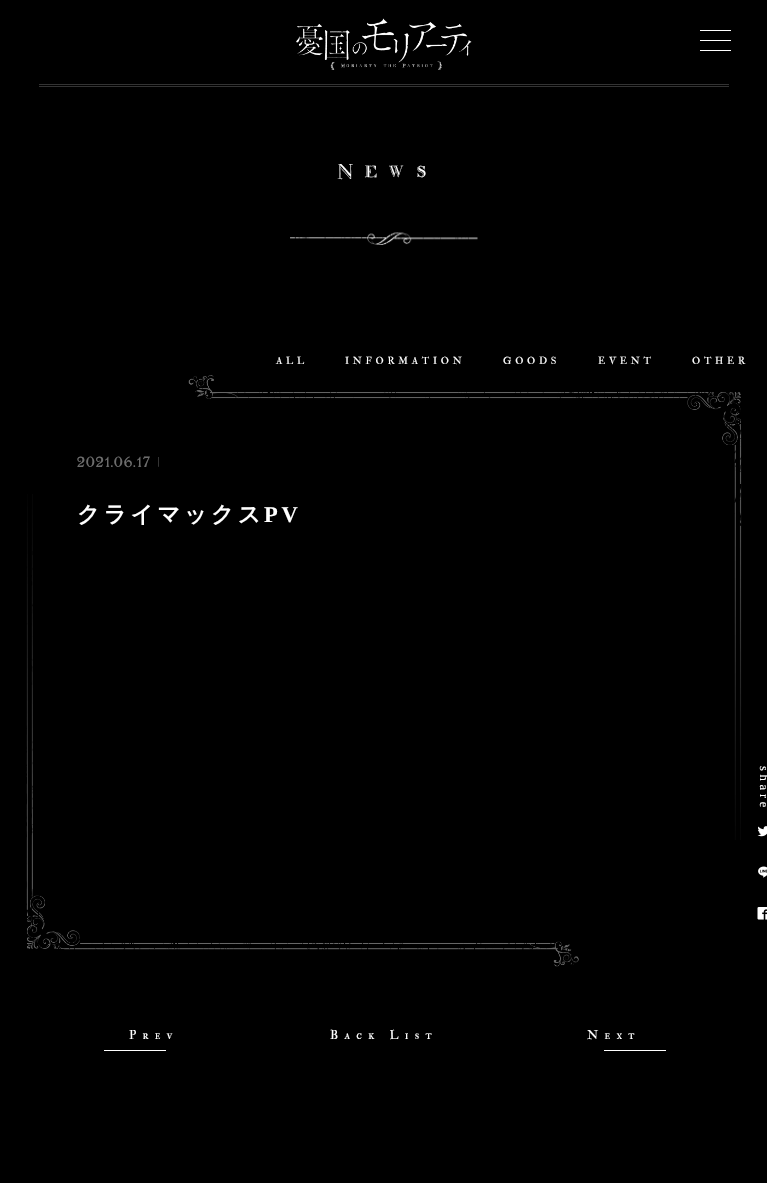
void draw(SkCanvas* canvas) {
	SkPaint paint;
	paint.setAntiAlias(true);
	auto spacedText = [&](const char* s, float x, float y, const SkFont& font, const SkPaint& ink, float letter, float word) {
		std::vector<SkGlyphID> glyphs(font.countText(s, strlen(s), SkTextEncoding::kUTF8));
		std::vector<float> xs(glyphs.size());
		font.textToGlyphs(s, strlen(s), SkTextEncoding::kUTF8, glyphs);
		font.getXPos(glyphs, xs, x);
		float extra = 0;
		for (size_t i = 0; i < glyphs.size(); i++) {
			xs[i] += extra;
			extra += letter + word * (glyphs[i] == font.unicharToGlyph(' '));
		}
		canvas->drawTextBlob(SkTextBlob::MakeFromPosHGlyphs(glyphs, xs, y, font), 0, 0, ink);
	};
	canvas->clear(0xff000000);
	canvas->drawImageRect(SkImages::DeferredFromEncodedData(SkData::MakeFromFileName("img1.png")), SkRect::MakeXYWH(296, 18, 176, 52), SkSamplingOptions());
	paint.setColor(0xffffffff);
	canvas->drawRect(SkRect::MakeXYWH(700, 30, 31, 1), paint);
	canvas->drawRect(SkRect::MakeXYWH(700, 40, 31, 1), paint);
	canvas->drawRect(SkRect::MakeXYWH(700, 50, 31, 1), paint);
	paint.setColor(0xff333333);
	canvas->drawRect(SkRect::MakeXYWH(39, 84, 690, 1), paint);
	canvas->drawRect(SkRect::MakeXYWH(39, 86, 690, 1), paint);
	SkFont f1(fontMgr->matchFamilyStyle("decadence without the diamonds", SkFontStyle::Normal()), 18.75);
	f1.setSubpixel(true);
	paint.setColor(0xffffffff);
	spacedText("News", 335, 179, f1, paint, 5, 0);
	canvas->drawImageRect(SkImages::DeferredFromEncodedData(SkData::MakeFromFileName("img2.png")), SkRect::MakeXYWH(290, 232, 188, 13), SkSamplingOptions());
	SkFont f2(fontMgr->matchFamilyStyle("IM FELL Double Pica SC", SkFontStyle::Normal()), 10);
	f2.setSubpixel(true);
	spacedText("ALL", 276, 364, f2, paint, 3.75, 0);
	spacedText("INFORMATION", 345, 364, f2, paint, 3.75, 0);
	spacedText("GOODS", 503, 364, f2, paint, 3.75, 0);
	spacedText("EVENT", 598, 364, f2, paint, 3.75, 0);
	spacedText("OTHER", 692, 364, f2, paint, 3.75, 0);
	SkFont f3(fontMgr->matchFamilyStyle("WenQuanYi Zen Hei", SkFontStyle::Bold()), 22.5);
	f3.setSubpixel(true);
	spacedText("クライマックス", 77, 522, f3, paint, 3.75, 0);
	SkFont f4(fontMgr->matchFamilyStyle("Liberation Serif", SkFontStyle::Bold()), 22.5);
	f4.setSubpixel(true);
	spacedText("PV", 264, 522, f4, paint, 3.75, 0);
	canvas->drawImageRect(SkImages::DeferredFromEncodedData(SkData::MakeFromFileName("img3.png")), SkRect::MakeXYWH(188, 375, 554, 465), SkSamplingOptions());
	SkFont f5(fontMgr->matchFamilyStyle("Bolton", SkFontStyle::Normal()), 12.5);
	f5.setSubpixel(true);
	paint.setColor(0xff6c6c6c);
	spacedText("2021.06.17 |", 77, 467, f5, paint, 1.25, 0);
	SkFont f6(fontMgr->matchFamilyStyle("Liberation Serif", SkFontStyle::Normal()), 12.5);
	f6.setSubpixel(true);
	paint.setColor(0xffffffff);
	canvas->save();
	canvas->rotate(90, 760, 766);
	spacedText("share", 760, 766, f6, paint, 3.75, 0);
	canvas->restore();
	canvas->drawImageRect(SkImages::DeferredFromEncodedData(SkData::MakeFromFileName("img4.png")), SkRect::MakeXYWH(757, 826, 10, 11), SkSamplingOptions());
	canvas->drawImageRect(SkImages::DeferredFromEncodedData(SkData::MakeFromFileName("img5.png")), SkRect::MakeXYWH(758, 866, 9, 12), SkSamplingOptions());
	canvas->drawImageRect(SkImages::DeferredFromEncodedData(SkData::MakeFromFileName("img6.png")), SkRect::MakeXYWH(757, 907, 10, 13), SkSamplingOptions());
	canvas->drawImageRect(SkImages::DeferredFromEncodedData(SkData::MakeFromFileName("img7.png")), SkRect::MakeXYWH(26, 494, 553, 473), SkSamplingOptions());
	SkFont f7(fontMgr->matchFamilyStyle("IM FELL Double Pica SC", SkFontStyle::Normal()), 12.5);
	f7.setSubpixel(true);
	spacedText("Prev", 129, 1039, f7, paint, 6.25, 0);
	canvas->drawRect(SkRect::MakeXYWH(104, 1050, 62, 1), paint);
	spacedText("Back List", 330, 1039, f7, paint, 6.25, 0);
	spacedText("Next", 587, 1039, f7, paint, 6.25, 0);
	canvas->drawRect(SkRect::MakeXYWH(604, 1050, 62, 1), paint);
}
